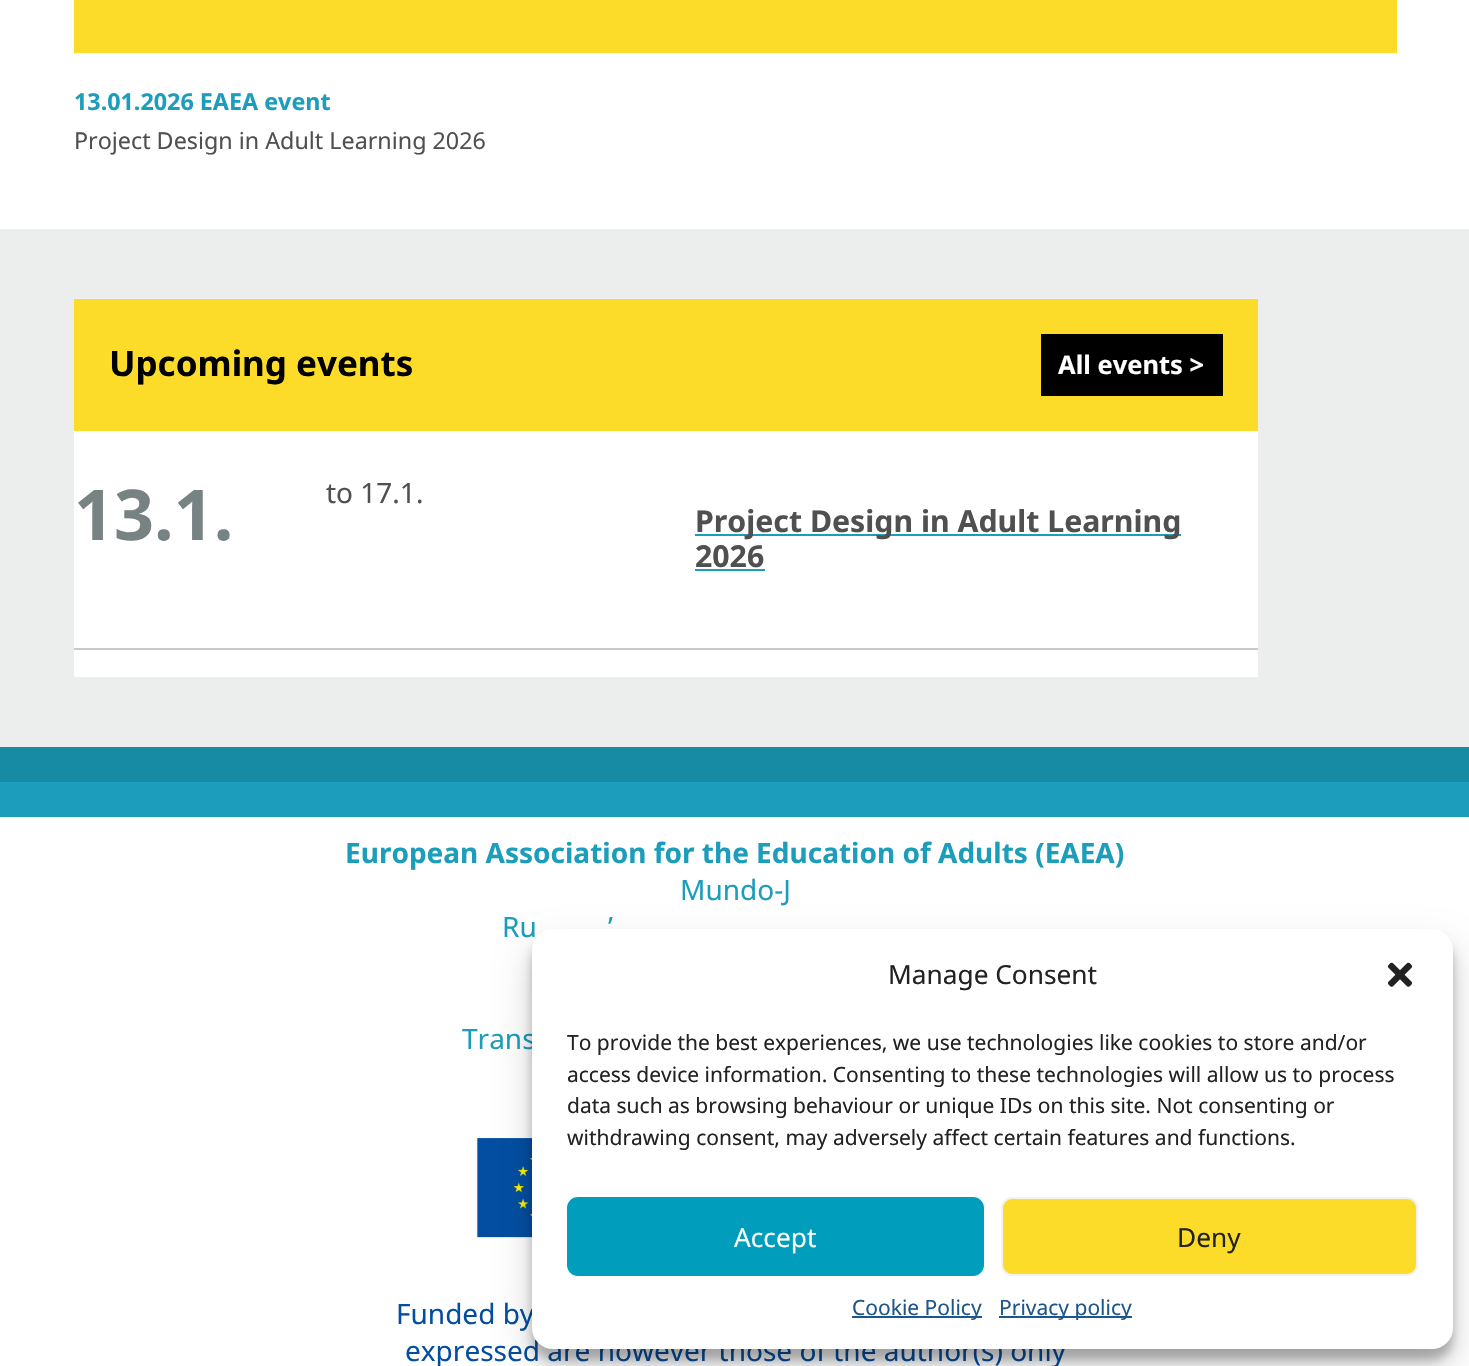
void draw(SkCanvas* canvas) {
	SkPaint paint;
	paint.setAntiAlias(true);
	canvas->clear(0xffffffff);
	paint.setColor(0xff178aa4);
	canvas->drawRect(SkRect::MakeXYWH(0, 747, 1469, 35), paint);
	paint.setColor(0xfffcdc29);
	canvas->drawRect(SkRect::MakeXYWH(74, 0, 1323, 53), paint);
	SkFont f1(fontMgr->matchFamilyStyle("Noto Sans", SkFontStyle::Bold()), 23.3);
	f1.setSubpixel(true);
	paint.setColor(0xff1c9dbb);
	canvas->drawString("13.01.2026 EAEA event", 74, 110, f1, paint);
	SkFont f2(fontMgr->matchFamilyStyle("Noto Sans", SkFontStyle::Normal()), 23.3);
	f2.setSubpixel(true);
	paint.setColor(0xff505050);
	canvas->drawString("Project Design in Adult Learning 2026", 74, 149, f2, paint);
	paint.setColor(0xffeceeed);
	canvas->drawRect(SkRect::MakeXYWH(0, 229, 1469, 518), paint);
	paint.setColor(0xfffcdc29);
	canvas->drawRect(SkRect::MakeXYWH(74, 299, 1184, 132), paint);
	SkFont f3(fontMgr->matchFamilyStyle("Noto Sans", SkFontStyle::Bold()), 35);
	f3.setSubpixel(true);
	paint.setColor(0xff000000);
	canvas->drawString("Upcoming events", 109, 376, f3, paint);
	canvas->drawRect(SkRect::MakeXYWH(1041, 334, 182, 62), paint);
	SkFont f4(fontMgr->matchFamilyStyle("Noto Sans", SkFontStyle::Bold()), 25.5);
	f4.setSubpixel(true);
	paint.setColor(0xffffffff);
	canvas->drawString("All events >", 1058, 374, f4, paint);
	canvas->drawRect(SkRect::MakeXYWH(74, 431, 1184, 246), paint);
	paint.setColor(0xffc9c9c9);
	canvas->drawRect(SkRect::MakeXYWH(74, 648, 1184, 2), paint);
	SkFont f5(fontMgr->matchFamilyStyle("Noto Sans", SkFontStyle::Bold()), 70);
	f5.setSubpixel(true);
	paint.setColor(0xff778283);
	canvas->drawString("13.1.", 74, 540, f5, paint);
	SkFont f6(fontMgr->matchFamilyStyle("Noto Sans", SkFontStyle::Normal()), 28);
	f6.setSubpixel(true);
	paint.setColor(0xff505050);
	canvas->drawString("to 17.1.", 326, 503, f6, paint);
	paint.setColor(0xff1c9dbb);
	canvas->drawRect(SkRect::MakeXYWH(695, 534, 486, 2), paint);
	SkFont f7(fontMgr->matchFamilyStyle("Noto Sans", SkFontStyle::Bold()), 30.25);
	f7.setSubpixel(true);
	paint.setColor(0xff505050);
	canvas->drawString("Project Design in Adult Learning", 695, 532, f7, paint);
	canvas->drawString("2026", 695, 567, f7, paint);
	paint.setColor(0xff1c9dbb);
	canvas->drawRect(SkRect::MakeXYWH(695, 569, 70, 2), paint);
	canvas->drawRect(SkRect::MakeXYWH(0, 782, 1469, 35), paint);
	SkFont f8(fontMgr->matchFamilyStyle("Noto Sans", SkFontStyle::Bold()), 28);
	f8.setSubpixel(true);
	canvas->drawString("European Association for the Education of Adults (EAEA)", 345, 863, f8, paint);
	canvas->drawString("Mundo-J", 680, 900, f6, paint);
	canvas->drawString("Ru", 502, 937, f6, paint);
	canvas->drawString("’", 608, 937, f6, paint);
	canvas->drawString("Trans", 462, 1049, f6, paint);
	canvas->drawImageRect(SkImages::DeferredFromEncodedData(SkData::MakeFromFileName("img1.png")), SkRect::MakeXYWH(476, 1138, 56, 100), SkSamplingOptions());
	paint.setColor(0xff034ea2);
	canvas->drawString("Funded by", 396, 1324, f6, paint);
	canvas->drawString("expressed are however those of the author(s) only", 405, 1361, f6, paint);
	paint.setColor(0x3b000000);
	paint.setMaskFilter(SkMaskFilter::MakeBlur(kNormal_SkBlurStyle, 5));
	canvas->drawRoundRect(SkRect::MakeXYWH(532, 940, 921, 420), 21, 21, paint);
	paint.setMaskFilter(nullptr);
	paint.setColor(0x30000000);
	paint.setMaskFilter(SkMaskFilter::MakeBlur(kNormal_SkBlurStyle, 17.5));
	canvas->drawRoundRect(SkRect::MakeXYWH(532, 947, 921, 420), 21, 21, paint);
	paint.setMaskFilter(nullptr);
	paint.setColor(0xffffffff);
	canvas->drawRoundRect(SkRect::MakeXYWH(532, 929, 921, 420), 21, 21, paint);
	SkFont f9(fontMgr->matchFamilyStyle("Noto Sans", SkFontStyle::Normal()), 26.25);
	f9.setSubpixel(true);
	paint.setColor(0xff222222);
	canvas->drawString("Manage Consent", 888, 984, f9, paint);
	canvas->drawImageRect(SkImages::DeferredFromEncodedData(SkData::MakeFromFileName("img2.png")), SkRect::MakeXYWH(1388, 962, 24, 25), SkSamplingOptions());
	SkFont f10(fontMgr->matchFamilyStyle("Noto Sans", SkFontStyle::Normal()), 21);
	f10.setSubpixel(true);
	canvas->drawString("To provide the best experiences, we use technologies like cookies to store and/or", 567, 1050, f10, paint);
	canvas->drawString("access device information. Consenting to these technologies will allow us to process", 567, 1082, f10, paint);
	canvas->drawString("data such as browsing behaviour or unique IDs on this site. Not consenting or", 567, 1113, f10, paint);
	canvas->drawString("withdrawing consent, may adversely affect certain features and functions.", 567, 1145, f10, paint);
	paint.setColor(0xff009dbc);
	canvas->drawRoundRect(SkRect::MakeXYWH(568, 1198, 415, 77), 10, 10, paint);
	paint.setStroke(true);
	paint.setStrokeWidth(2);
	canvas->drawRoundRect(SkRect::MakeXYWH(568, 1198, 415, 77), 10, 10, paint);
	paint.setStroke(false);
	paint.setColor(0xffffffff);
	canvas->drawString("Accept", 734, 1247, f9, paint);
	paint.setColor(0xfffcdc29);
	canvas->drawRoundRect(SkRect::MakeXYWH(1002, 1198, 415, 77), 10, 10, paint);
	paint.setStroke(true);
	paint.setColor(0xfff2f2f2);
	canvas->drawRoundRect(SkRect::MakeXYWH(1002, 1198, 415, 77), 10, 10, paint);
	paint.setStroke(false);
	paint.setColor(0xff222222);
	canvas->drawString("Deny", 1177, 1247, f9, paint);
	paint.setColor(0xff1c568a);
	canvas->drawRect(SkRect::MakeXYWH(852, 1316, 130, 2), paint);
	canvas->drawString("Cookie Policy", 852, 1315, f10, paint);
	canvas->drawRect(SkRect::MakeXYWH(999, 1316, 133, 2), paint);
	canvas->drawString("Privacy policy", 999, 1315, f10, paint);
}
